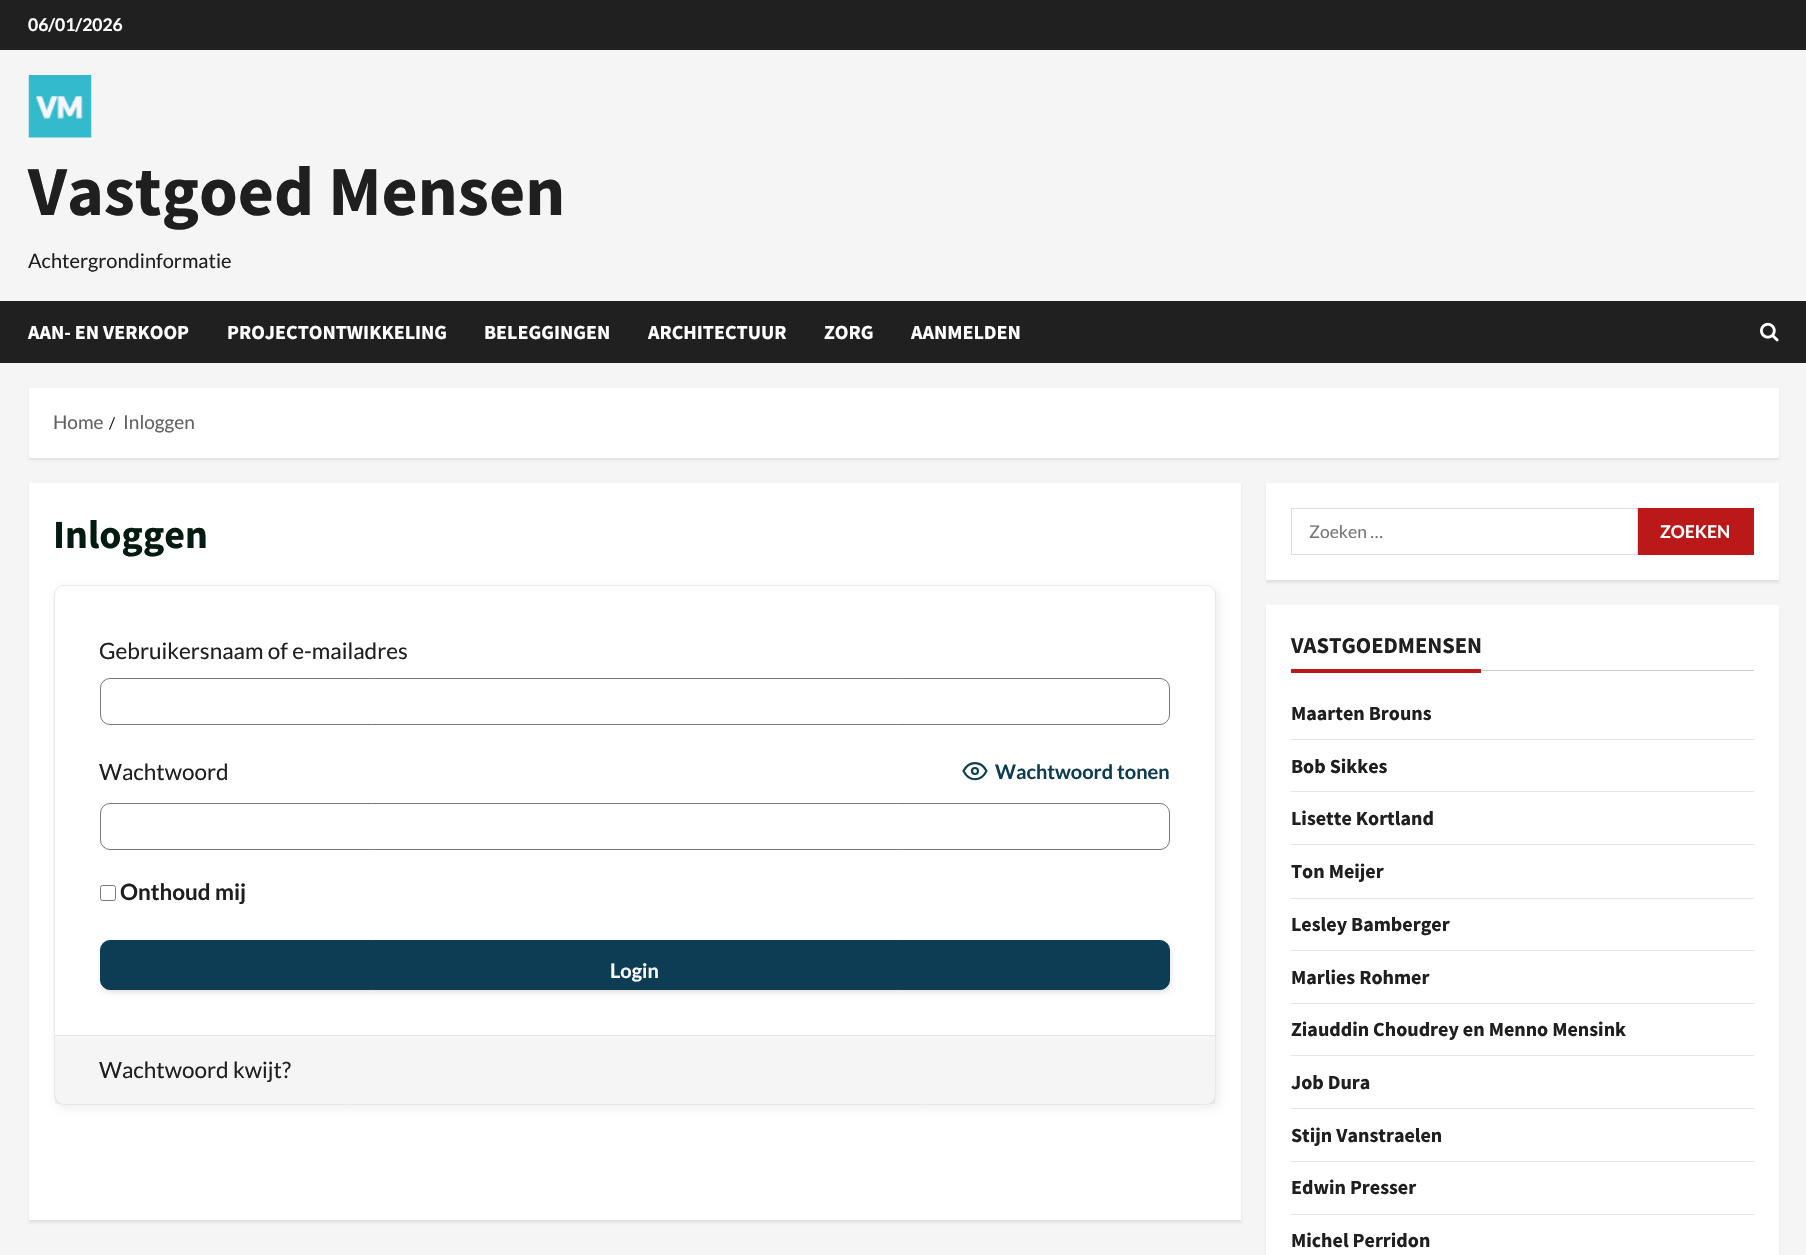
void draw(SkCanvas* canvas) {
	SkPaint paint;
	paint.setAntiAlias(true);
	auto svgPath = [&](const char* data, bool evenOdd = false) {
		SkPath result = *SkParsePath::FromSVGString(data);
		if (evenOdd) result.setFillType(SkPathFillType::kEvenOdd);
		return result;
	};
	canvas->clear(0xfff5f5f5);
	paint.setColor(0xff202020);
	canvas->drawRect(SkRect::MakeXYWH(0, 0, 1806, 50), paint);
	SkFont f1(fontMgr->matchFamilyStyle("Lato", SkFontStyle::Bold()), 17.5);
	f1.setSubpixel(true);
	paint.setColor(0xffffffff);
	canvas->drawString("06/01/2026", 28, 31, f1, paint);
	canvas->drawImageRect(SkImages::DeferredFromEncodedData(SkData::MakeFromFileName("img1.png")), SkRect::MakeXYWH(28, 75, 64, 63), SkSamplingOptions());
	SkFont f2(fontMgr->matchFamilyStyle("Source Sans Pro", SkFontStyle::Bold()), 70);
	f2.setSubpixel(true);
	paint.setColor(0xff1f1f1f);
	canvas->drawString("Vastgoed Mensen", 28, 215, f2, paint);
	SkFont f3(fontMgr->matchFamilyStyle("Lato", SkFontStyle::Normal()), 20);
	f3.setSubpixel(true);
	canvas->drawString("Achtergrondinformatie", 28, 268, f3, paint);
	paint.setColor(0xff202020);
	canvas->drawRect(SkRect::MakeXYWH(0, 301, 1806, 62), paint);
	SkFont f4(fontMgr->matchFamilyStyle("Source Sans Pro", SkFontStyle::Bold()), 20);
	f4.setSubpixel(true);
	paint.setColor(0xffffffff);
	canvas->drawString("AAN- EN VERKOOP", 28, 339, f4, paint);
	canvas->drawString("PROJECTONTWIKKELING", 227, 339, f4, paint);
	canvas->drawString("BELEGGINGEN", 484, 339, f4, paint);
	canvas->drawString("ARCHITECTUUR", 648, 339, f4, paint);
	canvas->drawString("ZORG", 824, 339, f4, paint);
	canvas->drawString("AANMELDEN", 911, 339, f4, paint);
	canvas->drawImageRect(SkImages::DeferredFromEncodedData(SkData::MakeFromFileName("img2.png")), SkRect::MakeXYWH(1760, 322, 19, 20), SkSamplingOptions());
	paint.setColor(0x14000000);
	paint.setMaskFilter(SkMaskFilter::MakeBlur(kNormal_SkBlurStyle, 1));
	canvas->drawRect(SkRect::MakeXYWH(29, 390, 1750, 70), paint);
	paint.setMaskFilter(nullptr);
	paint.setColor(0xffffffff);
	canvas->drawRect(SkRect::MakeXYWH(29, 388, 1750, 70), paint);
	SkFont f5(fontMgr->matchFamilyStyle("Lato", SkFontStyle::Normal()), 19);
	f5.setSubpixel(true);
	paint.setColor(0xff626262);
	canvas->drawString("Home", 53, 429, f5, paint);
	SkFont f6(fontMgr->matchFamilyStyle("Lato", SkFontStyle::Normal()), 16);
	f6.setSubpixel(true);
	paint.setColor(0xff1f1f1f);
	canvas->drawString("/", 109, 429, f6, paint);
	paint.setColor(0xff626262);
	canvas->drawString("Inloggen", 123, 429, f5, paint);
	paint.setColor(0x14000000);
	paint.setMaskFilter(SkMaskFilter::MakeBlur(kNormal_SkBlurStyle, 1));
	canvas->drawRect(SkRect::MakeXYWH(29, 485, 1212, 738), paint);
	paint.setMaskFilter(nullptr);
	paint.setColor(0xffffffff);
	canvas->drawRect(SkRect::MakeXYWH(29, 483, 1212, 737), paint);
	SkFont f7(fontMgr->matchFamilyStyle("Source Sans Pro", SkFontStyle::Bold()), 40);
	f7.setSubpixel(true);
	paint.setColor(0xff031b11);
	canvas->drawString("Inloggen", 53, 548, f7, paint);
	paint.setColor(0x12000000);
	paint.setMaskFilter(SkMaskFilter::MakeBlur(kNormal_SkBlurStyle, 4.5));
	canvas->drawRoundRect(SkRect::MakeXYWH(56, 588, 1163, 520), 10, 10, paint);
	paint.setMaskFilter(nullptr);
	paint.setColor(0xffffffff);
	canvas->drawRoundRect(SkRect::MakeXYWH(54.5, 585.5, 1161, 519), 9.5, 9.5, paint);
	paint.setStroke(true);
	paint.setStrokeWidth(1);
	paint.setColor(0xffe8e8e8);
	canvas->drawRoundRect(SkRect::MakeXYWH(54.5, 585.5, 1161, 519), 9.5, 9.5, paint);
	SkFont f8(fontMgr->matchFamilyStyle("Lato", SkFontStyle::Normal()), 22.5);
	f8.setSubpixel(true);
	paint.setStroke(false);
	paint.setColor(0xff1f1f1f);
	canvas->drawString("Gebruikersnaam of e-mailadres", 99, 659, f8, paint);
	paint.setStroke(true);
	paint.setColor(0xff777777);
	canvas->drawRoundRect(SkRect::MakeXYWH(100.5, 678.5, 1069, 46), 9.5, 9.5, paint);
	paint.setStroke(false);
	paint.setColor(0xff1f1f1f);
	canvas->drawString("Wachtwoord", 99, 780, f8, paint);
	paint.setStroke(true);
	paint.setStrokeWidth(2.1);
	paint.setStrokeCap(SkPaint::kRound_Cap);
	paint.setStrokeJoin(SkPaint::kRound_Join);
	paint.setColor(0xff0c3d54);
	canvas->drawPath(svgPath("M963.5 771C969 760.5 981 760.5 986.5 771C981 782 969 782 963.5 771Z"), paint);
	paint.setStrokeCap(SkPaint::kButt_Cap);
	paint.setStrokeJoin(SkPaint::kMiter_Join);
	canvas->drawCircle(975, 771, 3, paint);
	SkFont f9(fontMgr->matchFamilyStyle("Lato", SkFontStyle::Bold()), 20);
	f9.setSubpixel(true);
	paint.setStroke(false);
	canvas->drawString("Wachtwoord tonen", 995, 779, f9, paint);
	paint.setStroke(true);
	paint.setStrokeWidth(1);
	paint.setColor(0xff777777);
	canvas->drawRoundRect(SkRect::MakeXYWH(100.5, 803.5, 1069, 46), 9.5, 9.5, paint);
	paint.setColor(0xff767676);
	canvas->drawRoundRect(SkRect::MakeXYWH(100.5, 885.5, 15, 15), 2, 2, paint);
	SkFont f10(fontMgr->matchFamilyStyle("Lato", SkFontStyle::Bold()), 22.5);
	f10.setSubpixel(true);
	paint.setStroke(false);
	paint.setColor(0xff1f1f1f);
	canvas->drawString("Onthoud mij", 120, 900, f10, paint);
	paint.setColor(0x1a000000);
	paint.setMaskFilter(SkMaskFilter::MakeBlur(kNormal_SkBlurStyle, 2.5));
	canvas->drawRoundRect(SkRect::MakeXYWH(101, 943, 1070, 50), 10, 10, paint);
	paint.setMaskFilter(nullptr);
	paint.setColor(0xff0c3d54);
	canvas->drawRoundRect(SkRect::MakeXYWH(100.5, 940.5, 1069, 49), 9.5, 9.5, paint);
	paint.setStroke(true);
	canvas->drawRoundRect(SkRect::MakeXYWH(100.5, 940.5, 1069, 49), 9.5, 9.5, paint);
	paint.setStroke(false);
	paint.setColor(0xffffffff);
	canvas->drawString("Login", 610, 978, f9, paint);
	paint.setColor(0x0a000000);
	canvas->drawRect(SkRect::MakeXYWH(55, 1036, 1160, 68), paint);
	paint.setColor(0xffe8e8e8);
	canvas->drawRect(SkRect::MakeXYWH(55, 1035, 1160, 1), paint);
	paint.setColor(0xff1f1f1f);
	canvas->drawString("Wachtwoord kwijt?", 99, 1078, f8, paint);
	paint.setColor(0x14000000);
	paint.setMaskFilter(SkMaskFilter::MakeBlur(kNormal_SkBlurStyle, 1));
	canvas->drawRect(SkRect::MakeXYWH(1266, 485, 513, 98), paint);
	paint.setMaskFilter(nullptr);
	paint.setColor(0xffffffff);
	canvas->drawRect(SkRect::MakeXYWH(1266, 483, 513, 97), paint);
	paint.setStroke(true);
	paint.setColor(0xffdcdcdc);
	canvas->drawRect(SkRect::MakeXYWH(1291.5, 508.5, 346, 46), paint);
	SkFont f11(fontMgr->matchFamilyStyle("Lato", SkFontStyle::Normal()), 17.5);
	f11.setSubpixel(true);
	paint.setStroke(false);
	paint.setColor(0xff757575);
	canvas->drawString("Zoeken …", 1309, 538, f11, paint);
	paint.setColor(0xffbb1919);
	canvas->drawRect(SkRect::MakeXYWH(1638, 508, 116, 47), paint);
	paint.setColor(0xffffffff);
	canvas->drawString("ZOEKEN", 1660, 538, f1, paint);
	paint.setColor(0x14000000);
	paint.setMaskFilter(SkMaskFilter::MakeBlur(kNormal_SkBlurStyle, 1));
	canvas->drawRect(SkRect::MakeXYWH(1266, 608, 513, 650), paint);
	paint.setMaskFilter(nullptr);
	paint.setColor(0xffffffff);
	canvas->drawRect(SkRect::MakeXYWH(1266, 605, 513, 650), paint);
	paint.setColor(0xffcccccc);
	canvas->drawRect(SkRect::MakeXYWH(1481, 670, 273, 1), paint);
	SkFont f12(fontMgr->matchFamilyStyle("Source Sans Pro", SkFontStyle::Bold()), 22.5);
	f12.setSubpixel(true);
	paint.setColor(0xff1f1f1f);
	canvas->drawString("VASTGOEDMENSEN", 1291, 653, f12, paint);
	paint.setColor(0xffbb1919);
	canvas->drawRect(SkRect::MakeXYWH(1291, 669, 190, 4), paint);
	paint.setColor(0xffe6e6e6);
	canvas->drawRect(SkRect::MakeXYWH(1291, 739, 463, 1), paint);
	paint.setColor(0xff1f1f1f);
	canvas->drawString("Maarten Brouns", 1291, 720, f4, paint);
	paint.setColor(0xffe6e6e6);
	canvas->drawRect(SkRect::MakeXYWH(1291, 791, 463, 1), paint);
	paint.setColor(0xff1f1f1f);
	canvas->drawString("Bob Sikkes", 1291, 773, f4, paint);
	paint.setColor(0xffe6e6e6);
	canvas->drawRect(SkRect::MakeXYWH(1291, 844, 463, 1), paint);
	paint.setColor(0xff1f1f1f);
	canvas->drawString("Lisette Kortland", 1291, 825, f4, paint);
	paint.setColor(0xffe6e6e6);
	canvas->drawRect(SkRect::MakeXYWH(1291, 898, 463, 1), paint);
	paint.setColor(0xff1f1f1f);
	canvas->drawString("Ton Meijer", 1291, 878, f4, paint);
	paint.setColor(0xffe6e6e6);
	canvas->drawRect(SkRect::MakeXYWH(1291, 950, 463, 1), paint);
	paint.setColor(0xff1f1f1f);
	canvas->drawString("Lesley Bamberger", 1291, 931, f4, paint);
	paint.setColor(0xffe6e6e6);
	canvas->drawRect(SkRect::MakeXYWH(1291, 1003, 463, 1), paint);
	paint.setColor(0xff1f1f1f);
	canvas->drawString("Marlies Rohmer", 1291, 984, f4, paint);
	paint.setColor(0xffe6e6e6);
	canvas->drawRect(SkRect::MakeXYWH(1291, 1055, 463, 1), paint);
	paint.setColor(0xff1f1f1f);
	canvas->drawString("Ziauddin Choudrey en Menno Mensink", 1291, 1036, f4, paint);
	paint.setColor(0xffe6e6e6);
	canvas->drawRect(SkRect::MakeXYWH(1291, 1108, 463, 1), paint);
	paint.setColor(0xff1f1f1f);
	canvas->drawString("Job Dura", 1291, 1089, f4, paint);
	paint.setColor(0xffe6e6e6);
	canvas->drawRect(SkRect::MakeXYWH(1291, 1161, 463, 1), paint);
	paint.setColor(0xff1f1f1f);
	canvas->drawString("Stijn Vanstraelen", 1291, 1142, f4, paint);
	paint.setColor(0xffe6e6e6);
	canvas->drawRect(SkRect::MakeXYWH(1291, 1214, 463, 1), paint);
	paint.setColor(0xff1f1f1f);
	canvas->drawString("Edwin Presser", 1291, 1194, f4, paint);
	canvas->drawString("Michel Perridon", 1291, 1247, f4, paint);
}
